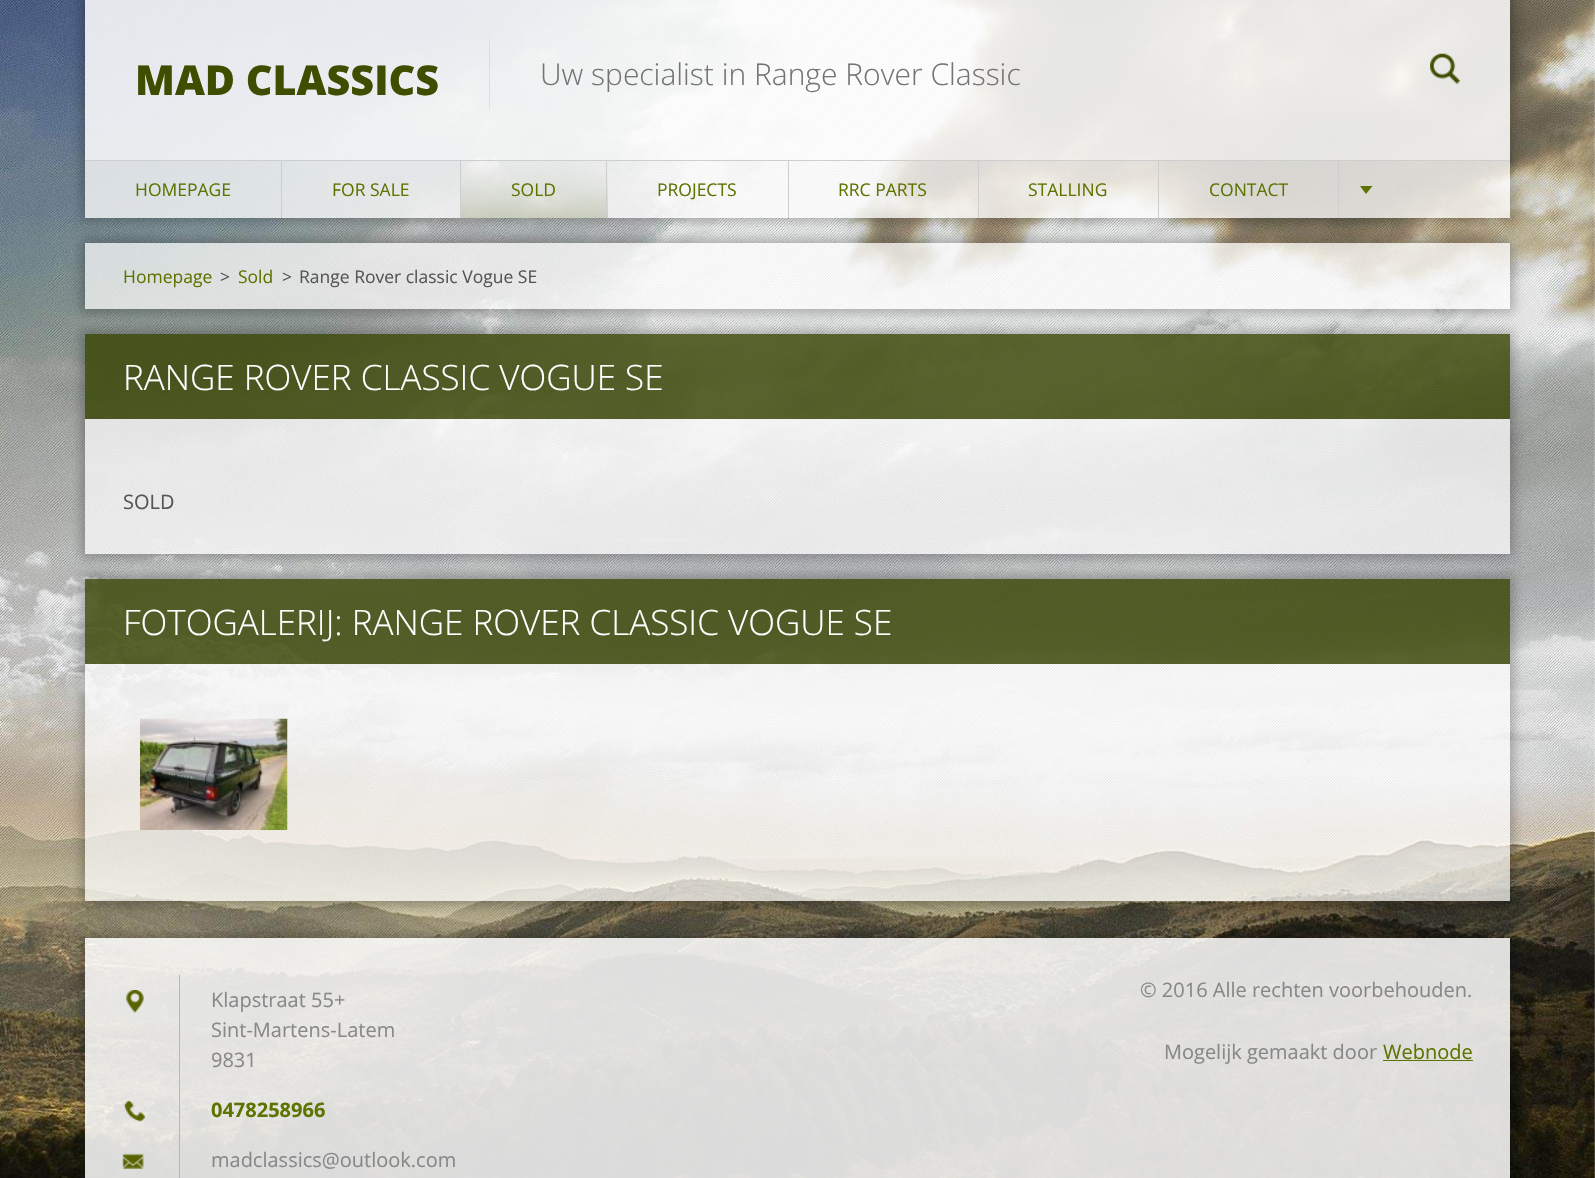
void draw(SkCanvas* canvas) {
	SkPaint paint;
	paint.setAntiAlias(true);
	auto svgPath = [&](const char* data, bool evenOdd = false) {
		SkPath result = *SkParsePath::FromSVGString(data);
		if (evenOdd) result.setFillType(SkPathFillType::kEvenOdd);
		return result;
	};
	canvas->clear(0xffffffff);
	canvas->drawImageRect(SkImages::DeferredFromEncodedData(SkData::MakeFromFileName("img1.png")), SkRect::MakeXYWH(0, 0, 1595, 1178), SkSamplingOptions());
	canvas->save();
	canvas->clipPath(svgPath("M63 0H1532V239H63ZM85 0H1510V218H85Z", true), true);
	paint.setColor(0x40000000);
	paint.setMaskFilter(SkMaskFilter::MakeBlur(kNormal_SkBlurStyle, 5.5));
	canvas->drawRect(SkRect::MakeXYWH(81, -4, 1433, 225), paint);
	paint.setMaskFilter(nullptr);
	canvas->restore();
	paint.setColor(0xd9ffffff);
	canvas->drawRect(SkRect::MakeXYWH(85, 0, 1425, 160), paint);
	SkFont f1(fontMgr->matchFamilyStyle("Open Sans", SkFontStyle(800, SkFontStyle::kNormal_Width, SkFontStyle::kUpright_Slant)), 41.25);
	f1.setSubpixel(true);
	paint.setColor(0xff3e4d00);
	canvas->drawString("MAD CLASSICS", 135, 95, f1, paint);
	paint.setColor(0xffdce2cf);
	canvas->drawRect(SkRect::MakeXYWH(489, 38, 1, 71), paint);
	SkFont f2(fontMgr->matchFamilyStyle("Open Sans", SkFontStyle(300, SkFontStyle::kNormal_Width, SkFontStyle::kUpright_Slant)), 30);
	f2.setSubpixel(true);
	paint.setColor(0xff747474);
	canvas->drawString("Uw specialist in Range Rover Classic", 540, 85, f2, paint);
	canvas->drawImageRect(SkImages::DeferredFromEncodedData(SkData::MakeFromFileName("img2.png")), SkRect::MakeXYWH(1430, 53, 30, 31), SkSamplingOptions());
	paint.setColor(0xffcecece);
	canvas->drawRect(SkRect::MakeXYWH(85, 160, 1425, 1), paint);
	paint.setColor(0xbfffffff);
	canvas->drawRect(SkRect::MakeXYWH(85, 161, 1425, 57), paint);
	paint.setColor(0xffcecece);
	canvas->drawRect(SkRect::MakeXYWH(281, 161, 1, 57), paint);
	SkFont f3(fontMgr->matchFamilyStyle("Open Sans", SkFontStyle::Normal()), 17.5);
	f3.setSubpixel(true);
	paint.setColor(0xff5d7400);
	canvas->drawString("HOMEPAGE", 135, 196, f3, paint);
	paint.setColor(0xffcecece);
	canvas->drawRect(SkRect::MakeXYWH(460, 161, 1, 57), paint);
	paint.setColor(0xff5d7400);
	canvas->drawString("FOR SALE", 332, 196, f3, paint);
	{
		const SkColor colors[] = {0x1affffff, 0x333e4d00};
		const float stops[] = {0, 1};
		const SkPoint ends[] = {{534, 161}, {534, 218}};
		paint.setShader(SkGradientShader::MakeLinear(ends, colors, stops, 2, SkTileMode::kClamp));
		paint.setAlpha(255);
	}
	canvas->drawRect(SkRect::MakeXYWH(461, 161, 147, 57), paint);
	paint.setShader(nullptr);
	paint.setColor(0xffcecece);
	canvas->drawRect(SkRect::MakeXYWH(606, 161, 1, 57), paint);
	paint.setColor(0xff5d7400);
	canvas->drawString("SOLD", 511, 196, f3, paint);
	paint.setColor(0xffcecece);
	canvas->drawRect(SkRect::MakeXYWH(788, 161, 1, 57), paint);
	paint.setColor(0xff5d7400);
	canvas->drawString("PROJECTS", 657, 196, f3, paint);
	paint.setColor(0xffcecece);
	canvas->drawRect(SkRect::MakeXYWH(978, 161, 1, 57), paint);
	paint.setColor(0xff5d7400);
	canvas->drawString("RRC PARTS", 838, 196, f3, paint);
	paint.setColor(0xffcecece);
	canvas->drawRect(SkRect::MakeXYWH(1158, 161, 1, 57), paint);
	paint.setColor(0xff5d7400);
	canvas->drawString("STALLING", 1028, 196, f3, paint);
	paint.setColor(0xffcecece);
	canvas->drawRect(SkRect::MakeXYWH(1338, 161, 1, 57), paint);
	paint.setColor(0xff5d7400);
	canvas->drawString("CONTACT", 1209, 196, f3, paint);
	canvas->drawPath(svgPath("M1360 186H1372.5L1366 194Z"), paint);
	canvas->save();
	canvas->clipPath(svgPath("M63 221H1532V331H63ZM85 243H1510V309H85Z", true), true);
	paint.setColor(0x40000000);
	paint.setMaskFilter(SkMaskFilter::MakeBlur(kNormal_SkBlurStyle, 5.5));
	canvas->drawRect(SkRect::MakeXYWH(81, 239, 1433, 74), paint);
	paint.setMaskFilter(nullptr);
	canvas->restore();
	paint.setColor(0xb3ffffff);
	canvas->drawRect(SkRect::MakeXYWH(85, 243, 1425, 66), paint);
	paint.setColor(0xff5d7400);
	canvas->drawString("Homepage", 123, 283, f3, paint);
	paint.setColor(0xff555555);
	canvas->drawString(">", 220, 283, f3, paint);
	paint.setColor(0xff5d7400);
	canvas->drawString("Sold", 238, 283, f3, paint);
	paint.setColor(0xff555555);
	canvas->drawString(">", 282, 283, f3, paint);
	canvas->drawString("Range Rover classic Vogue SE", 299, 283, f3, paint);
	canvas->save();
	canvas->clipPath(svgPath("M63 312H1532V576H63ZM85 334H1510V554H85Z", true), true);
	paint.setColor(0x40000000);
	paint.setMaskFilter(SkMaskFilter::MakeBlur(kNormal_SkBlurStyle, 5.5));
	canvas->drawRect(SkRect::MakeXYWH(81, 330, 1433, 228), paint);
	paint.setMaskFilter(nullptr);
	canvas->restore();
	paint.setColor(0xcc354200);
	canvas->drawRect(SkRect::MakeXYWH(85, 334, 1425, 85), paint);
	SkFont f4(fontMgr->matchFamilyStyle("Open Sans", SkFontStyle(300, SkFontStyle::kNormal_Width, SkFontStyle::kUpright_Slant)), 35);
	f4.setSubpixel(true);
	paint.setColor(0xffffffff);
	canvas->drawString("RANGE ROVER CLASSIC VOGUE SE", 123, 390, f4, paint);
	paint.setColor(0xb3ffffff);
	canvas->drawRect(SkRect::MakeXYWH(85, 419, 1425, 97), paint);
	SkFont f5(fontMgr->matchFamilyStyle("Open Sans", SkFontStyle::Normal()), 20);
	f5.setSubpixel(true);
	paint.setColor(0xff555555);
	canvas->drawString("SOLD", 123, 509, f5, paint);
	paint.setColor(0xb3ffffff);
	canvas->drawRect(SkRect::MakeXYWH(85, 516, 1425, 38), paint);
	canvas->save();
	canvas->clipPath(svgPath("M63 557H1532V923H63ZM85 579H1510V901H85Z", true), true);
	paint.setColor(0x40000000);
	paint.setMaskFilter(SkMaskFilter::MakeBlur(kNormal_SkBlurStyle, 5.5));
	canvas->drawRect(SkRect::MakeXYWH(81, 575, 1433, 330), paint);
	paint.setMaskFilter(nullptr);
	canvas->restore();
	paint.setColor(0xcc354200);
	canvas->drawRect(SkRect::MakeXYWH(85, 579, 1425, 85), paint);
	paint.setColor(0xffffffff);
	canvas->drawString("FOTOGALERIJ: RANGE ROVER CLASSIC VOGUE SE", 123, 635, f4, paint);
	paint.setColor(0xb3ffffff);
	canvas->drawRect(SkRect::MakeXYWH(85, 664, 1425, 200), paint);
	canvas->drawImageRect(SkImages::DeferredFromEncodedData(SkData::MakeFromFileName("img3.png")), SkRect::MakeXYWH(140, 718, 148, 112), SkSamplingOptions());
	canvas->drawRect(SkRect::MakeXYWH(85, 864, 1425, 37), paint);
	canvas->save();
	canvas->clipPath(svgPath("M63 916H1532V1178H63ZM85 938H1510V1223H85Z", true), true);
	paint.setColor(0x40000000);
	paint.setMaskFilter(SkMaskFilter::MakeBlur(kNormal_SkBlurStyle, 5.5));
	canvas->drawRect(SkRect::MakeXYWH(81, 934, 1433, 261), paint);
	paint.setMaskFilter(nullptr);
	canvas->restore();
	paint.setColor(0xd9ffffff);
	canvas->drawRect(SkRect::MakeXYWH(85, 938, 1425, 240), paint);
	canvas->drawImageRect(SkImages::DeferredFromEncodedData(SkData::MakeFromFileName("img4.png")), SkRect::MakeXYWH(126, 990, 18, 23), SkSamplingOptions());
	paint.setColor(0xffb7b7b7);
	canvas->drawRect(SkRect::MakeXYWH(179, 975, 1, 203), paint);
	paint.setColor(0xff888888);
	canvas->drawString("Klapstraat 55+", 211, 1007, f5, paint);
	canvas->drawString("Sint-Martens-Latem", 211, 1037, f5, paint);
	canvas->drawString("9831", 211, 1067, f5, paint);
	canvas->drawImageRect(SkImages::DeferredFromEncodedData(SkData::MakeFromFileName("img5.png")), SkRect::MakeXYWH(123, 1100, 22, 22), SkSamplingOptions());
	SkFont f6(fontMgr->matchFamilyStyle("Open Sans", SkFontStyle::Bold()), 20);
	f6.setSubpixel(true);
	paint.setColor(0xff5d7400);
	canvas->drawString("0478258966", 211, 1117, f6, paint);
	canvas->drawImageRect(SkImages::DeferredFromEncodedData(SkData::MakeFromFileName("img6.png")), SkRect::MakeXYWH(122, 1153, 22, 16), SkSamplingOptions());
	paint.setColor(0xff888888);
	canvas->drawString("madclassics@outlook.com", 211, 1167, f5, paint);
	canvas->drawString("© 2016 Alle rechten voorbehouden.", 1140, 997, f5, paint);
	canvas->drawString("Mogelijk gemaakt door", 1164, 1059, f5, paint);
	paint.setColor(0xff5d7400);
	canvas->drawString("Webnode", 1383, 1059, f5, paint);
	canvas->drawRect(SkRect::MakeXYWH(1383, 1060, 90, 1), paint);
}
